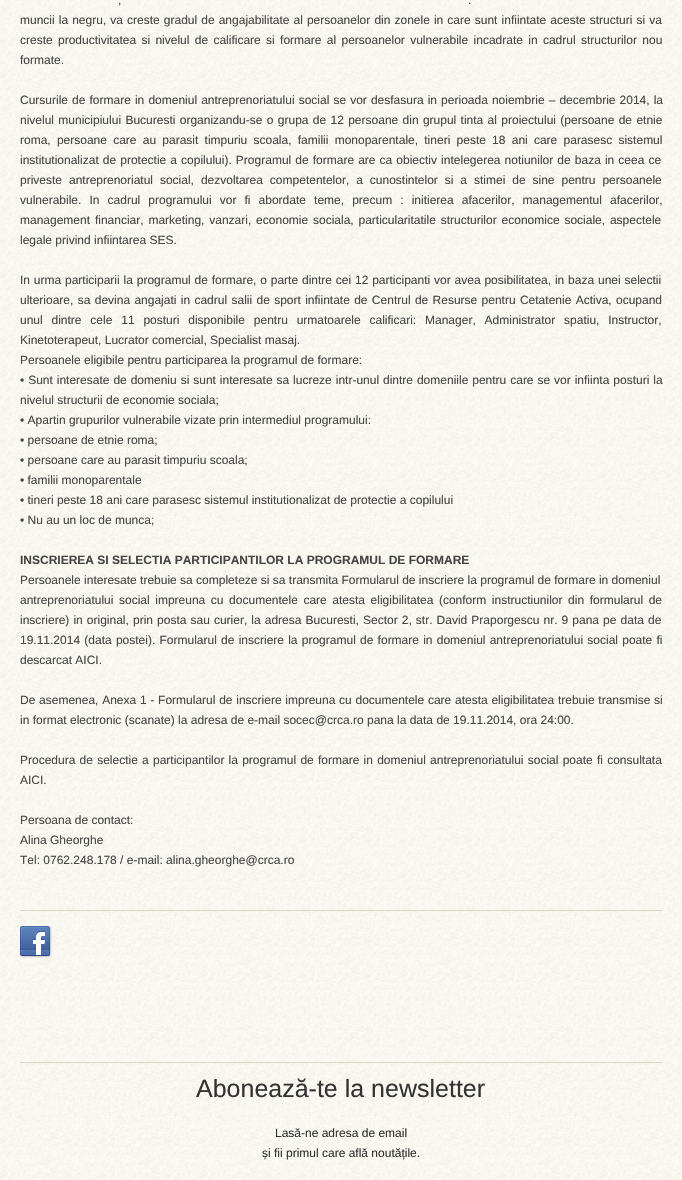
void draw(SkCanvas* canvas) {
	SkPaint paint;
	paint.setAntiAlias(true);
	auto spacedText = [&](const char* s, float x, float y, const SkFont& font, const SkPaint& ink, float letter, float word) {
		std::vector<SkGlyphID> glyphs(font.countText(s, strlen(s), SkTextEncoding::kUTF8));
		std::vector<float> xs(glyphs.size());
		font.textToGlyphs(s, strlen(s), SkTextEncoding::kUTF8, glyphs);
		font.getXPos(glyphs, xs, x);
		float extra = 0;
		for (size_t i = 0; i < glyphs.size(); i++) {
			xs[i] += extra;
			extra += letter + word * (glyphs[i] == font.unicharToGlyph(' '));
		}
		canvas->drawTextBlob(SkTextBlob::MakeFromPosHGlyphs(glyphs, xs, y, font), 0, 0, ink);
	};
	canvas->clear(0xffffffff);
	canvas->drawImageRect(SkImages::DeferredFromEncodedData(SkData::MakeFromFileName("img1.png")), SkRect::MakeXYWH(0, 0, 682, 1180), SkSamplingOptions());
	SkFont f1(fontMgr->matchFamilyStyle("Liberation Sans", SkFontStyle::Normal()), 12);
	f1.setSubpixel(true);
	paint.setColor(0xff474545);
	spacedText(",", 118, 4, f1, paint, 0, 1);
	spacedText(".", 468, 4, f1, paint, 0, 1);
	spacedText("muncii la negru, va creste gradul de angajabilitate al persoanelor din zonele in care sunt infiintate aceste structuri si va", 20, 24, f1, paint, 0, 0.75);
	spacedText("creste productivitatea si nivelul de calificare si formare al persoanelor vulnerabile incadrate in cadrul structurilor nou", 20, 44, f1, paint, 0, 2);
	canvas->drawString("formate.", 20, 64, f1, paint);
	spacedText("Cursurile de formare in domeniul antreprenoriatului social se vor desfasura in perioada noiembrie – decembrie 2014, la", 20, 104, f1, paint, 0, 0.75);
	spacedText("nivelul municipiului Bucuresti organizandu-se o grupa de 12 persoane din grupul tinta al proiectului (persoane de etnie", 20, 124, f1, paint, 0, 1);
	spacedText("roma, persoane care au parasit timpuriu scoala, familii monoparentale, tineri peste 18 ani care parasesc sistemul", 20, 144, f1, paint, 0, 2.9);
	spacedText("institutionalizat de protectie a copilului). Programul de formare are ca obiectiv intelegerea notiunilor de baza in ceea ce", 20, 164, f1, paint, 0, 0.75);
	spacedText("priveste antreprenoriatul social, dezvoltarea competentelor, a cunostintelor si a stimei de sine pentru persoanele", 20, 184, f1, paint, 0, 3.6);
	spacedText("vulnerabile. In cadrul programului vor fi abordate teme, precum : initierea afacerilor, managementul afacerilor,", 20, 204, f1, paint, 0, 4.75);
	spacedText("management financiar, marketing, vanzari, economie sociala, particularitatile structurilor economice sociale, aspectele", 20, 224, f1, paint, 0, 1.5);
	canvas->drawString("legale privind infiintarea SES.", 20, 244, f1, paint);
	spacedText("In urma participarii la programul de formare, o parte dintre cei 12 participanti vor avea posibilitatea, in baza unei selectii", 20, 284, f1, paint, 0, 0.5);
	spacedText("ulterioare, sa devina angajati in cadrul salii de sport infiintate de Centrul de Resurse pentru Cetatenie Activa, ocupand", 20, 304, f1, paint, 0, 1);
	spacedText("unul dintre cele 11 posturi disponibile pentru urmatoarele calificari: Manager, Administrator spatiu, Instructor,", 20, 324, f1, paint, 0, 5.5);
	canvas->drawString("Kinetoterapeut, Lucrator comercial, Specialist masaj.", 20, 344, f1, paint);
	canvas->drawString("Persoanele eligibile pentru participarea la programul de formare:", 20, 364, f1, paint);
	spacedText("• Sunt interesate de domeniu si sunt interesate sa lucreze intr-unul dintre domeniile pentru care se vor infiinta posturi la", 20, 384, f1, paint, 0, 0.6);
	canvas->drawString("nivelul structurii de economie sociala;", 20, 404, f1, paint);
	canvas->drawString("• Apartin grupurilor vulnerabile vizate prin intermediul programului:", 20, 424, f1, paint);
	canvas->drawString("• persoane de etnie roma;", 20, 444, f1, paint);
	canvas->drawString("• persoane care au parasit timpuriu scoala;", 20, 464, f1, paint);
	canvas->drawString("• familii monoparentale", 20, 484, f1, paint);
	canvas->drawString("• tineri peste 18 ani care parasesc sistemul institutionalizat de protectie a copilului", 20, 504, f1, paint);
	canvas->drawString("• Nu au un loc de munca;", 20, 524, f1, paint);
	SkFont f2(fontMgr->matchFamilyStyle("Liberation Sans", SkFontStyle::Bold()), 12);
	f2.setSubpixel(true);
	canvas->drawString("INSCRIEREA SI SELECTIA PARTICIPANTILOR LA PROGRAMUL DE FORMARE", 20, 564, f2, paint);
	canvas->drawString("Persoanele interesate trebuie sa completeze si sa transmita Formularul de inscriere la programul de formare in domeniul", 20, 584, f1, paint);
	spacedText("antreprenoriatului social impreuna cu documentele care atesta eligibilitatea (conform instructiunilor din formularul de", 20, 604, f1, paint, 0, 2.25);
	spacedText("inscriere) in original, prin posta sau curier, la adresa Bucuresti, Sector 2, str. David Praporgescu nr. 9 pana pe data de", 20, 624, f1, paint, 0, 0.75);
	spacedText("19.11.2014 (data postei). Formularul de inscriere la programul de formare in domeniul antreprenoriatului social poate fi", 20, 644, f1, paint, 0, 0.9);
	canvas->drawString("descarcat AICI.", 20, 664, f1, paint);
	spacedText("De asemenea, Anexa 1 - Formularul de inscriere impreuna cu documentele care atesta eligibilitatea trebuie transmise si", 20, 704, f1, paint, 0, 0.4);
	canvas->drawString("in format electronic (scanate) la adresa de e-mail socec@crca.ro pana la data de 19.11.2014, ora 24:00.", 20, 724, f1, paint);
	spacedText("Procedura de selectie a participantilor la programul de formare in domeniul antreprenoriatului social poate fi consultata", 20, 764, f1, paint, 0, 0.9);
	canvas->drawString("AICI.", 20, 784, f1, paint);
	canvas->drawString("Persoana de contact:", 20, 824, f1, paint);
	canvas->drawString("Alina Gheorghe", 20, 844, f1, paint);
	canvas->drawString("Tel: 0762.248.178 / e-mail: alina.gheorghe@crca.ro", 20, 864, f1, paint);
	paint.setColor(0xffd9d6c5);
	canvas->drawRect(SkRect::MakeXYWH(20, 910, 642, 1), paint);
	canvas->drawImageRect(SkImages::DeferredFromEncodedData(SkData::MakeFromFileName("img2.png")), SkRect::MakeXYWH(20, 926, 32, 32), SkSamplingOptions());
	canvas->drawRect(SkRect::MakeXYWH(20, 1062, 642, 1), paint);
	SkFont f3(fontMgr->matchFamilyStyle("Liberation Sans", SkFontStyle::Normal()), 25);
	f3.setSubpixel(true);
	paint.setColor(0xff333333);
	canvas->drawString("Abonează-te la newsletter", 196, 1097, f3, paint);
	canvas->drawString("Lasă-ne adresa de email", 275, 1137, f1, paint);
	canvas->drawString("și fii primul care află noutățile.", 262, 1157, f1, paint);
}
